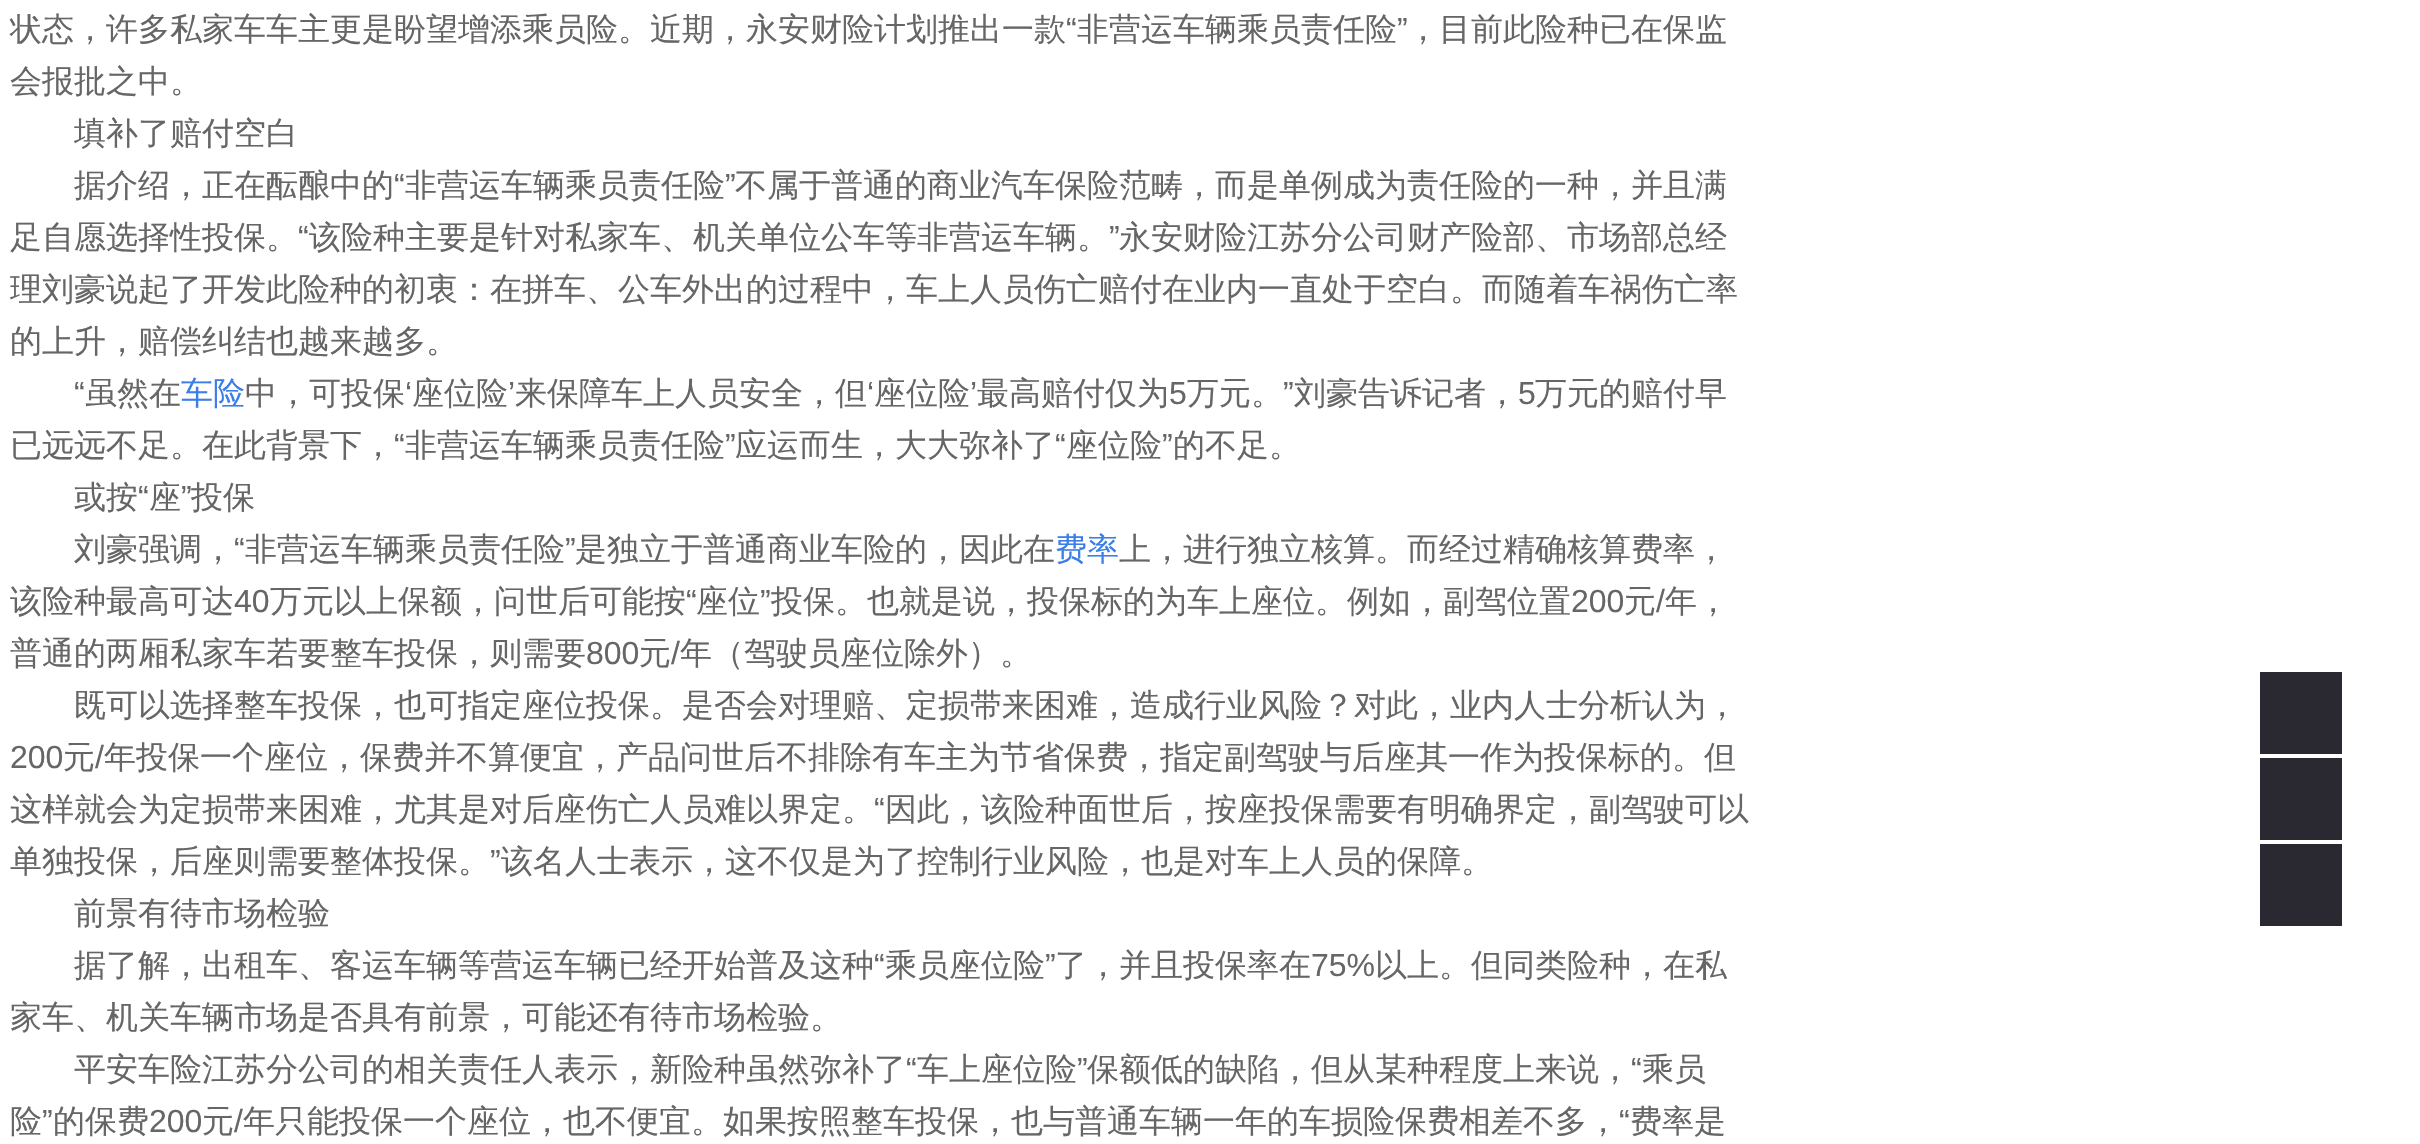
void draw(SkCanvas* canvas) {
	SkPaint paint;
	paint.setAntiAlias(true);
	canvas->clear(0xffffffff);
	SkFont f1(fontMgr->matchFamilyStyle("WenQuanYi Zen Hei", SkFontStyle(500, SkFontStyle::kNormal_Width, SkFontStyle::kUpright_Slant)), 32);
	f1.setSubpixel(true);
	paint.setColor(0xff666666);
	canvas->drawString("状态，许多私家车车主更是盼望增添乘员险。近期，永安财险计划推出一款", 10, 40, f1, paint);
	SkFont f2(fontMgr->matchFamilyStyle("Liberation Sans", SkFontStyle::Normal()), 32);
	f2.setSubpixel(true);
	canvas->drawString("“", 1066, 40, f2, paint);
	canvas->drawString("非营运车辆乘员责任险", 1077, 40, f1, paint);
	canvas->drawString("”", 1397, 40, f2, paint);
	canvas->drawString("，目前此险种已在保监", 1407, 40, f1, paint);
	canvas->drawString("会报批之中。", 10, 92, f1, paint);
	canvas->drawString("填补了赔付空白", 74, 144, f1, paint);
	canvas->drawString("据介绍，正在酝酿中的", 74, 196, f1, paint);
	canvas->drawString("“", 394, 196, f2, paint);
	canvas->drawString("非营运车辆乘员责任险", 405, 196, f1, paint);
	canvas->drawString("”", 725, 196, f2, paint);
	canvas->drawString("不属于普通的商业汽车保险范畴，而是单例成为责任险的一种，并且满", 735, 196, f1, paint);
	canvas->drawString("足自愿选择性投保。", 10, 248, f1, paint);
	canvas->drawString("“", 298, 248, f2, paint);
	canvas->drawString("该险种主要是针对私家车、机关单位公车等非营运车辆。", 309, 248, f1, paint);
	canvas->drawString("”", 1109, 248, f2, paint);
	canvas->drawString("永安财险江苏分公司财产险部、市场部总经", 1119, 248, f1, paint);
	canvas->drawString("理刘豪说起了开发此险种的初衷：在拼车、公车外出的过程中，车上人员伤亡赔付在业内一直处于空白。而随着车祸伤亡率", 10, 300, f1, paint);
	canvas->drawString("的上升，赔偿纠结也越来越多。", 10, 352, f1, paint);
	canvas->drawString("“", 74, 404, f2, paint);
	canvas->drawString("虽然在", 85, 404, f1, paint);
	paint.setColor(0xff3c7ee8);
	canvas->drawString("车险", 181, 404, f1, paint);
	paint.setColor(0xff666666);
	canvas->drawString("中，可投保", 245, 404, f1, paint);
	canvas->drawString("‘", 405, 404, f2, paint);
	canvas->drawString("座位险", 412, 404, f1, paint);
	canvas->drawString("’", 508, 404, f2, paint);
	canvas->drawString("来保障车上人员安全，但", 515, 404, f1, paint);
	canvas->drawString("‘", 867, 404, f2, paint);
	canvas->drawString("座位险", 874, 404, f1, paint);
	canvas->drawString("’", 970, 404, f2, paint);
	canvas->drawString("最高赔付仅为", 977, 404, f1, paint);
	canvas->drawString("5", 1169, 404, f2, paint);
	canvas->drawString("万元。", 1187, 404, f1, paint);
	canvas->drawString("”", 1283, 404, f2, paint);
	canvas->drawString("刘豪告诉记者，", 1294, 404, f1, paint);
	canvas->drawString("5", 1518, 404, f2, paint);
	canvas->drawString("万元的赔付早", 1535, 404, f1, paint);
	canvas->drawString("已远远不足。在此背景下，", 10, 456, f1, paint);
	canvas->drawString("“", 394, 456, f2, paint);
	canvas->drawString("非营运车辆乘员责任险", 405, 456, f1, paint);
	canvas->drawString("”", 725, 456, f2, paint);
	canvas->drawString("应运而生，大大弥补了", 735, 456, f1, paint);
	canvas->drawString("“", 1055, 456, f2, paint);
	canvas->drawString("座位险", 1066, 456, f1, paint);
	canvas->drawString("”", 1162, 456, f2, paint);
	canvas->drawString("的不足。", 1173, 456, f1, paint);
	canvas->drawString("或按", 74, 508, f1, paint);
	canvas->drawString("“", 138, 508, f2, paint);
	canvas->drawString("座", 149, 508, f1, paint);
	canvas->drawString("”", 181, 508, f2, paint);
	canvas->drawString("投保", 191, 508, f1, paint);
	canvas->drawString("刘豪强调，", 74, 560, f1, paint);
	canvas->drawString("“", 234, 560, f2, paint);
	canvas->drawString("非营运车辆乘员责任险", 245, 560, f1, paint);
	canvas->drawString("”", 565, 560, f2, paint);
	canvas->drawString("是独立于普通商业车险的，因此在", 575, 560, f1, paint);
	paint.setColor(0xff3c7ee8);
	canvas->drawString("费率", 1055, 560, f1, paint);
	paint.setColor(0xff666666);
	canvas->drawString("上，进行独立核算。而经过精确核算费率，", 1119, 560, f1, paint);
	canvas->drawString("该险种最高可达", 10, 612, f1, paint);
	canvas->drawString("40", 234, 612, f2, paint);
	canvas->drawString("万元以上保额，问世后可能按", 270, 612, f1, paint);
	canvas->drawString("“", 686, 612, f2, paint);
	canvas->drawString("座位", 696, 612, f1, paint);
	canvas->drawString("”", 760, 612, f2, paint);
	canvas->drawString("投保。也就是说，投保标的为车上座位。例如，副驾位置", 771, 612, f1, paint);
	canvas->drawString("200", 1571, 612, f2, paint);
	canvas->drawString("元", 1624, 612, f1, paint);
	canvas->drawString("/", 1656, 612, f2, paint);
	canvas->drawString("年，", 1665, 612, f1, paint);
	canvas->drawString("普通的两厢私家车若要整车投保，则需要", 10, 664, f1, paint);
	canvas->drawString("800", 586, 664, f2, paint);
	canvas->drawString("元", 639, 664, f1, paint);
	canvas->drawString("/", 671, 664, f2, paint);
	canvas->drawString("年（驾驶员座位除外）。", 680, 664, f1, paint);
	canvas->drawString("既可以选择整车投保，也可指定座位投保。是否会对理赔、定损带来困难，造成行业风险？对此，业内人士分析认为，", 74, 716, f1, paint);
	canvas->drawString("200", 10, 768, f2, paint);
	canvas->drawString("元", 63, 768, f1, paint);
	canvas->drawString("/", 95, 768, f2, paint);
	canvas->drawString("年投保一个座位，保费并不算便宜，产品问世后不排除有车主为节省保费，指定副驾驶与后座其一作为投保标的。但", 104, 768, f1, paint);
	canvas->drawString("这样就会为定损带来困难，尤其是对后座伤亡人员难以界定。", 10, 820, f1, paint);
	canvas->drawString("“", 874, 820, f2, paint);
	canvas->drawString("因此，该险种面世后，按座投保需要有明确界定，副驾驶可以", 885, 820, f1, paint);
	canvas->drawString("单独投保，后座则需要整体投保。", 10, 872, f1, paint);
	canvas->drawString("”", 490, 872, f2, paint);
	canvas->drawString("该名人士表示，这不仅是为了控制行业风险，也是对车上人员的保障。", 501, 872, f1, paint);
	canvas->drawString("前景有待市场检验", 74, 924, f1, paint);
	canvas->drawString("据了解，出租车、客运车辆等营运车辆已经开始普及这种", 74, 976, f1, paint);
	canvas->drawString("“", 874, 976, f2, paint);
	canvas->drawString("乘员座位险", 885, 976, f1, paint);
	canvas->drawString("”", 1045, 976, f2, paint);
	canvas->drawString("了，并且投保率在", 1055, 976, f1, paint);
	canvas->drawString("75%", 1311, 976, f2, paint);
	canvas->drawString("以上。但同类险种，在私", 1375, 976, f1, paint);
	canvas->drawString("家车、机关车辆市场是否具有前景，可能还有待市场检验。", 10, 1028, f1, paint);
	canvas->drawString("平安车险江苏分公司的相关责任人表示，新险种虽然弥补了", 74, 1080, f1, paint);
	canvas->drawString("“", 906, 1080, f2, paint);
	canvas->drawString("车上座位险", 917, 1080, f1, paint);
	canvas->drawString("”", 1077, 1080, f2, paint);
	canvas->drawString("保额低的缺陷，但从某种程度上来说，", 1087, 1080, f1, paint);
	canvas->drawString("“", 1631, 1080, f2, paint);
	canvas->drawString("乘员", 1642, 1080, f1, paint);
	canvas->drawString("险", 10, 1132, f1, paint);
	canvas->drawString("”", 42, 1132, f2, paint);
	canvas->drawString("的保费", 53, 1132, f1, paint);
	canvas->drawString("200", 149, 1132, f2, paint);
	canvas->drawString("元", 202, 1132, f1, paint);
	canvas->drawString("/", 234, 1132, f2, paint);
	canvas->drawString("年只能投保一个座位，也不便宜。如果按照整车投保，也与普通车辆一年的车损险保费相差不多，", 243, 1132, f1, paint);
	canvas->drawString("“", 1619, 1132, f2, paint);
	canvas->drawString("费率是", 1630, 1132, f1, paint);
	paint.setColor(0xff2a2932);
	canvas->drawRect(SkRect::MakeXYWH(2260, 672, 82, 82), paint);
	canvas->drawRect(SkRect::MakeXYWH(2260, 758, 82, 82), paint);
	canvas->drawRect(SkRect::MakeXYWH(2260, 844, 82, 82), paint);
}
